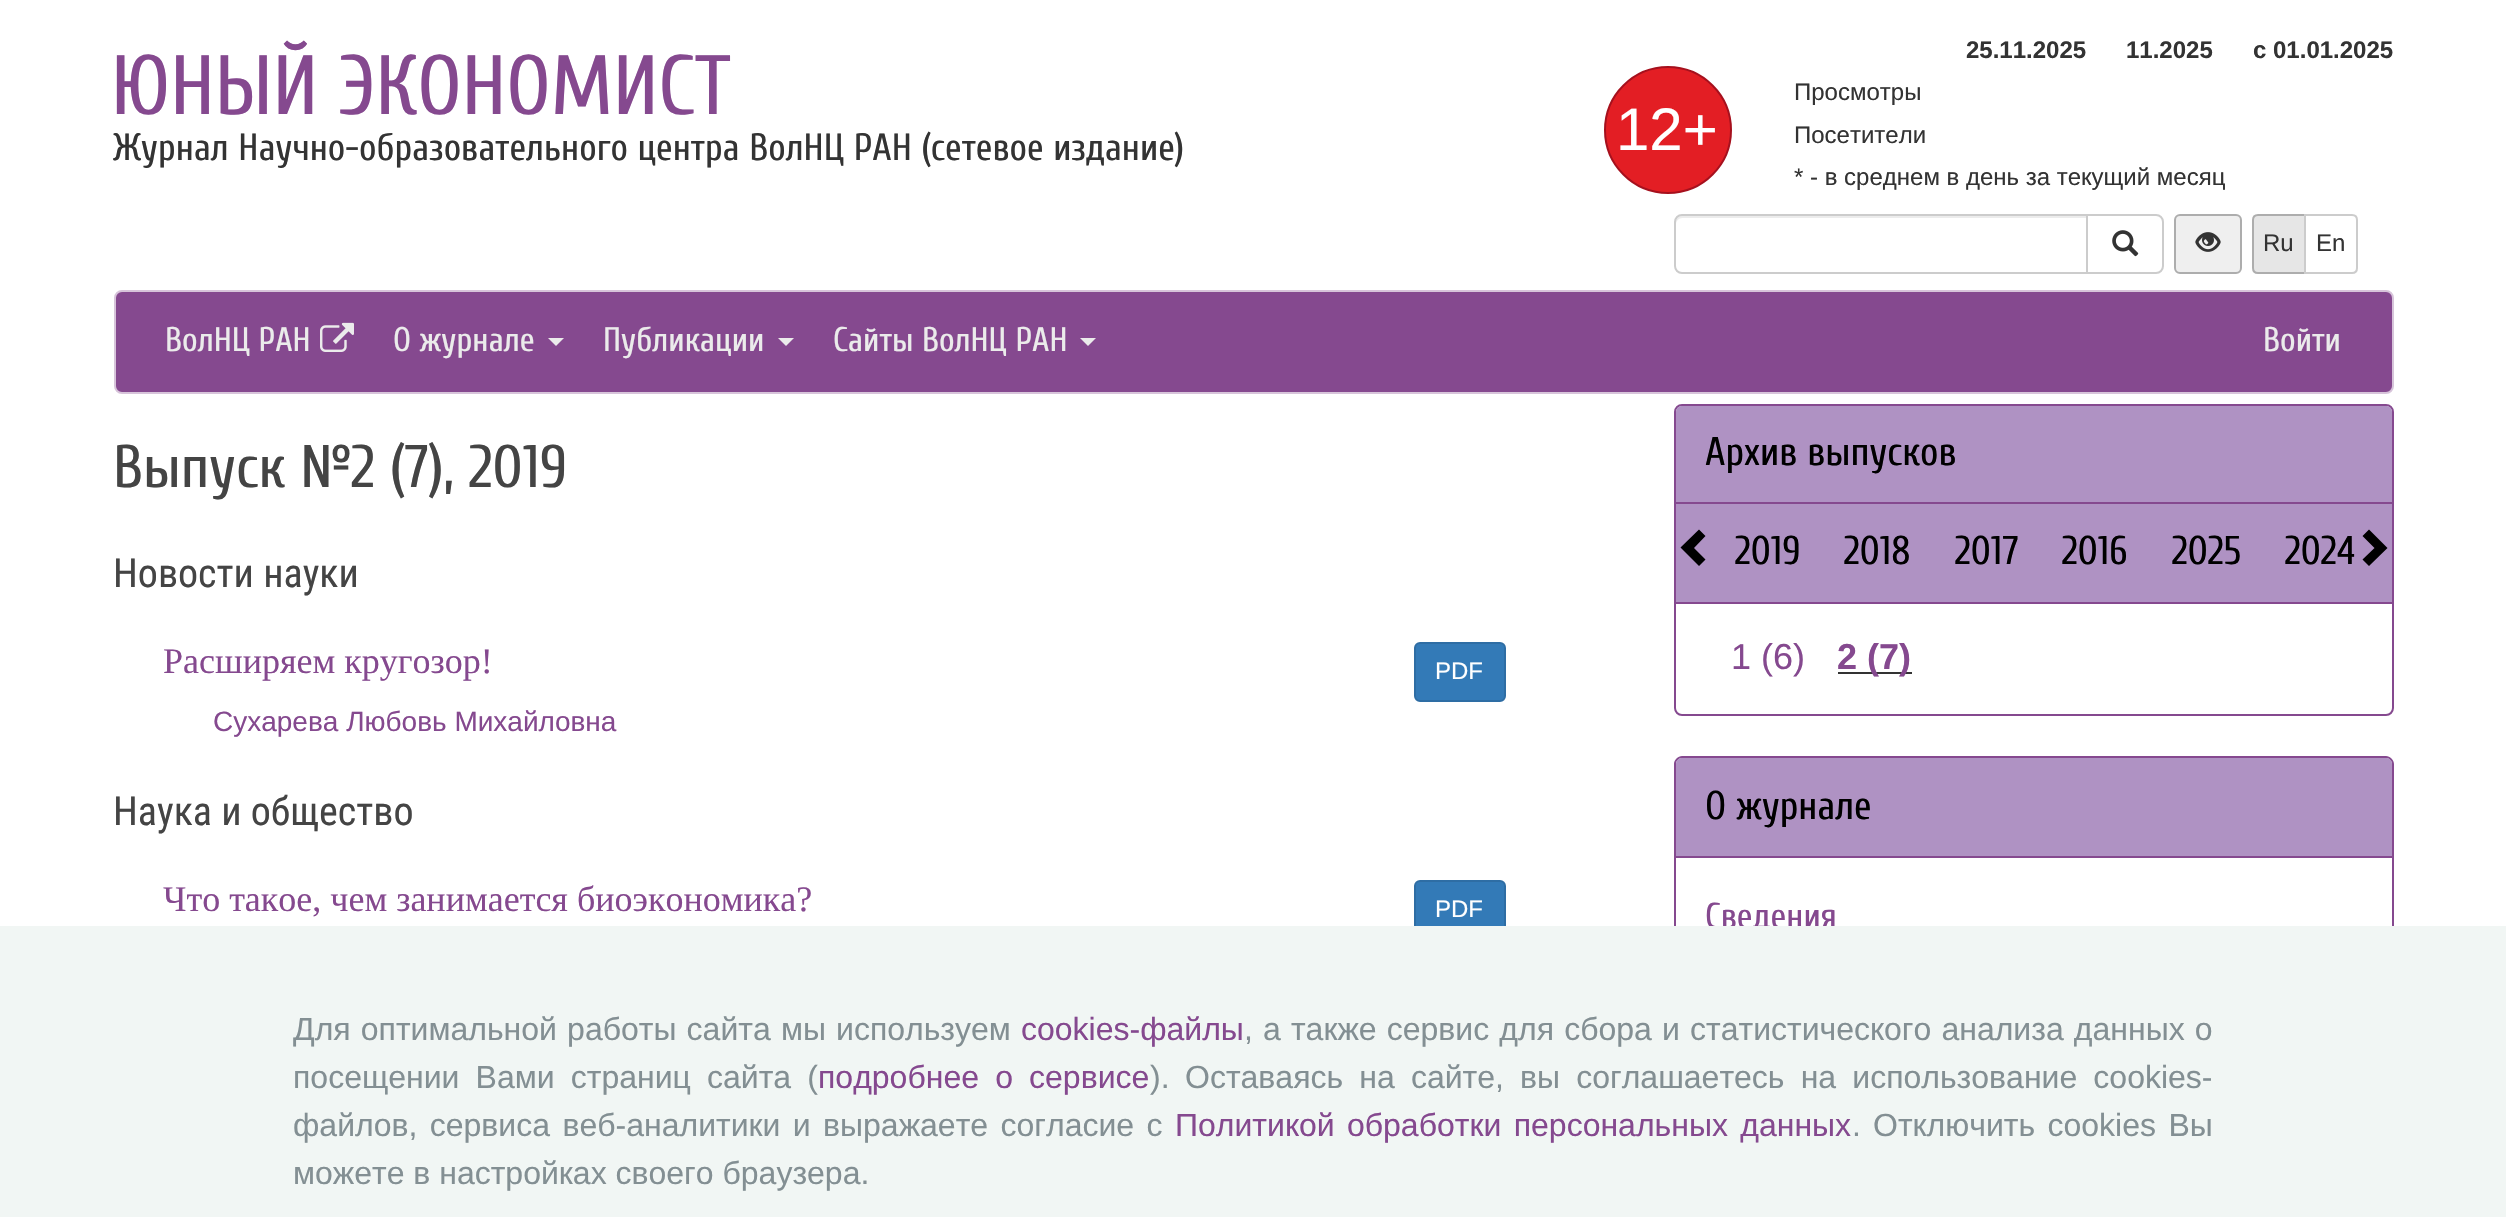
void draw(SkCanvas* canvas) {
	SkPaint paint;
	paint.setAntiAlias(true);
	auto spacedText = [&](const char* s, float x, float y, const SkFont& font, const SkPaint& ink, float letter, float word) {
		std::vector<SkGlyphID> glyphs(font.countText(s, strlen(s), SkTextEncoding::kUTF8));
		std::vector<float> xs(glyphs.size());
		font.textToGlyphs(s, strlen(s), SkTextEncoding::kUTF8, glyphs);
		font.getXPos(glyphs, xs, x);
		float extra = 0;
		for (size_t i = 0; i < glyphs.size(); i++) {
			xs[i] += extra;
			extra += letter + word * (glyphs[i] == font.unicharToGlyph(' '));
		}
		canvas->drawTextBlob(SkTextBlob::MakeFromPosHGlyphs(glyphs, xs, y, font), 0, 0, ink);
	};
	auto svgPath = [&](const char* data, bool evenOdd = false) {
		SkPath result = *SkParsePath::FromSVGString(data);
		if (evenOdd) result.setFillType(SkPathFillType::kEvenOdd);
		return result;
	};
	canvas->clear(0xffffffff);
	SkFont f1(fontMgr->matchFamilyStyle("Cuprum", SkFontStyle::Normal()), 84);
	f1.setSubpixel(true);
	paint.setColor(0xff85498f);
	canvas->drawString("ЮНЫЙ ЭКОНОМИСТ", 111, 114, f1, paint);
	SkFont f2(fontMgr->matchFamilyStyle("Cuprum", SkFontStyle::Normal()), 38);
	f2.setSubpixel(true);
	paint.setColor(0xff333333);
	canvas->drawString("Журнал Научно-образовательного центра ВолНЦ РАН (сетевое издание)", 113, 160, f2, paint);
	paint.setColor(0xffe31e24);
	canvas->drawCircle(1668, 130, 63, paint);
	paint.setStroke(true);
	paint.setStrokeWidth(2);
	paint.setColor(0xffa6101d);
	canvas->drawCircle(1668, 130, 63, paint);
	SkFont f3(fontMgr->matchFamilyStyle("Liberation Sans", SkFontStyle::Normal()), 60);
	f3.setSubpixel(true);
	paint.setStroke(false);
	paint.setColor(0xffffffff);
	canvas->drawString("12+", 1616, 150, f3, paint);
	SkFont f4(fontMgr->matchFamilyStyle("Liberation Sans", SkFontStyle::Bold()), 24);
	f4.setSubpixel(true);
	paint.setColor(0xff333333);
	canvas->drawString("25.11.2025", 1966, 58, f4, paint);
	canvas->drawString("11.2025", 2126, 58, f4, paint);
	canvas->drawString("с 01.01.2025", 2253, 58, f4, paint);
	SkFont f5(fontMgr->matchFamilyStyle("Liberation Sans", SkFontStyle::Normal()), 24);
	f5.setSubpixel(true);
	canvas->drawString("Просмотры", 1794, 100, f5, paint);
	canvas->drawString("Посетители", 1794, 143, f5, paint);
	canvas->drawString("* - в среднем в день за текущий месяц", 1794, 185, f5, paint);
	paint.setColor(0xffececec);
	canvas->drawPath(svgPath("M1682 218H2086V216H1682C1679 216 1676 219 1676 222V224C1676 221 1679 218 1682 218Z"), paint);
	paint.setStroke(true);
	paint.setColor(0xffcccccc);
	canvas->drawPath(svgPath("M1682 215H2087V273H1682C1678 273 1675 270 1675 266V222C1675 218 1678 215 1682 215Z"), paint);
	paint.setStroke(false);
	paint.setColor(0xffffffff);
	canvas->drawPath(svgPath("M2087 215H2156C2160 215 2163 218 2163 222V266C2163 270 2160 273 2156 273H2087Z"), paint);
	paint.setStroke(true);
	paint.setColor(0xffcccccc);
	canvas->drawPath(svgPath("M2087 215H2156C2160 215 2163 218 2163 222V266C2163 270 2160 273 2156 273H2087Z"), paint);
	canvas->drawImageRect(SkImages::DeferredFromEncodedData(SkData::MakeFromFileName("img1.png")), SkRect::MakeXYWH(2112, 230, 27, 27), SkSamplingOptions());
	paint.setStroke(false);
	paint.setColor(0xffefefef);
	canvas->drawRoundRect(SkRect::MakeXYWH(2175, 215, 66, 58), 5, 5, paint);
	paint.setStroke(true);
	paint.setColor(0xffadadad);
	canvas->drawRoundRect(SkRect::MakeXYWH(2175, 215, 66, 58), 5, 5, paint);
	canvas->drawImageRect(SkImages::DeferredFromEncodedData(SkData::MakeFromFileName("img2.png")), SkRect::MakeXYWH(2195, 232, 26, 20), SkSamplingOptions());
	paint.setStroke(false);
	paint.setColor(0xffe6e6e6);
	canvas->drawPath(svgPath("M2258 215H2305V273H2258C2255 273 2253 271 2253 268V220C2253 217 2255 215 2258 215Z"), paint);
	paint.setStroke(true);
	paint.setColor(0xffadadad);
	canvas->drawPath(svgPath("M2258 215H2305V273H2258C2255 273 2253 271 2253 268V220C2253 217 2255 215 2258 215Z"), paint);
	paint.setStroke(false);
	paint.setColor(0xff333333);
	canvas->drawString("Ru", 2263, 251, f5, paint);
	paint.setColor(0xffffffff);
	canvas->drawPath(svgPath("M2305 215H2352C2355 215 2357 217 2357 220V268C2357 271 2355 273 2352 273H2305Z"), paint);
	paint.setStroke(true);
	paint.setColor(0xffcccccc);
	canvas->drawPath(svgPath("M2305 215H2352C2355 215 2357 217 2357 220V268C2357 271 2355 273 2352 273H2305Z"), paint);
	paint.setStroke(false);
	paint.setColor(0xff333333);
	canvas->drawString("En", 2316, 251, f5, paint);
	paint.setColor(0xff85498f);
	canvas->drawRoundRect(SkRect::MakeXYWH(115, 291, 2278, 102), 7, 7, paint);
	paint.setStroke(true);
	paint.setColor(0xffd7c4da);
	canvas->drawRoundRect(SkRect::MakeXYWH(115, 291, 2278, 102), 7, 7, paint);
	SkFont f6(fontMgr->matchFamilyStyle("Cuprum", SkFontStyle::Normal()), 34);
	f6.setSubpixel(true);
	paint.setStroke(false);
	paint.setColor(0xffebebeb);
	canvas->drawString("ВолНЦ РАН", 165, 351, f6, paint);
	canvas->drawImageRect(SkImages::DeferredFromEncodedData(SkData::MakeFromFileName("img3.png")), SkRect::MakeXYWH(320, 322, 34, 30), SkSamplingOptions());
	canvas->drawString("О журнале", 393, 351, f6, paint);
	canvas->drawPath(svgPath("M548 338H564L556 346Z"), paint);
	canvas->drawString("Публикации", 603, 351, f6, paint);
	canvas->drawPath(svgPath("M778 338H794L786 346Z"), paint);
	canvas->drawString("Сайты ВолНЦ РАН", 833, 351, f6, paint);
	canvas->drawPath(svgPath("M1080 338H1096L1088 346Z"), paint);
	canvas->drawString("Войти", 2263, 351, f6, paint);
	SkFont f7(fontMgr->matchFamilyStyle("Cuprum", SkFontStyle::Normal()), 60);
	f7.setSubpixel(true);
	paint.setColor(0xff444444);
	canvas->drawString("Выпуск №2 (7), 2019", 113, 487, f7, paint);
	SkFont f8(fontMgr->matchFamilyStyle("Roboto Condensed", SkFontStyle::Normal()), 40);
	f8.setSubpixel(true);
	canvas->drawString("Новости науки", 113, 587, f8, paint);
	SkFont f9(fontMgr->matchFamilyStyle("Liberation Serif", SkFontStyle::Normal()), 36);
	f9.setSubpixel(true);
	paint.setColor(0xff85498f);
	canvas->drawString("Расширяем кругозор!", 163, 673, f9, paint);
	SkFont f10(fontMgr->matchFamilyStyle("Liberation Sans", SkFontStyle::Normal()), 28);
	f10.setSubpixel(true);
	canvas->drawString("Сухарева Любовь Михайловна", 213, 731, f10, paint);
	paint.setColor(0xff337ab7);
	canvas->drawRoundRect(SkRect::MakeXYWH(1415, 643, 90, 58), 5, 5, paint);
	paint.setStroke(true);
	paint.setColor(0xff2e6da4);
	canvas->drawRoundRect(SkRect::MakeXYWH(1415, 643, 90, 58), 5, 5, paint);
	paint.setStroke(false);
	paint.setColor(0xffffffff);
	canvas->drawString("PDF", 1435, 679, f5, paint);
	paint.setColor(0xff444444);
	canvas->drawString("Наука и общество", 113, 825, f8, paint);
	paint.setColor(0xff85498f);
	canvas->drawString("Что такое, чем занимается биоэкономика?", 163, 911, f9, paint);
	paint.setColor(0xff337ab7);
	canvas->drawRoundRect(SkRect::MakeXYWH(1415, 881, 90, 58), 5, 5, paint);
	paint.setStroke(true);
	paint.setColor(0xff2e6da4);
	canvas->drawRoundRect(SkRect::MakeXYWH(1415, 881, 90, 58), 5, 5, paint);
	paint.setStroke(false);
	paint.setColor(0xffffffff);
	canvas->drawString("PDF", 1435, 917, f5, paint);
	paint.setStroke(true);
	paint.setColor(0xff85498f);
	canvas->drawRoundRect(SkRect::MakeXYWH(1675, 405, 718, 310), 7, 7, paint);
	paint.setStroke(false);
	paint.setColor(0xffaf92c3);
	canvas->drawPath(svgPath("M1682 406H2386C2389.5 406 2392 408.5 2392 412V504H1676V412C1676 408.5 1678.5 406 1682 406Z"), paint);
	paint.setColor(0xff85498f);
	canvas->drawRect(SkRect::MakeXYWH(1676, 502, 716, 2), paint);
	SkFont f11(fontMgr->matchFamilyStyle("Cuprum", SkFontStyle::Normal()), 40);
	f11.setSubpixel(true);
	paint.setColor(0xff000000);
	canvas->drawString("Архив выпусков", 1705, 465, f11, paint);
	paint.setColor(0xffaf92c3);
	canvas->drawRect(SkRect::MakeXYWH(1676, 504, 716, 98), paint);
	paint.setColor(0xff000000);
	canvas->drawPath(svgPath("M1705.5 536L1694 548L1705.5 559.5L1699 566L1680.5 547.5L1699 529.5Z"), paint);
	paint.setColor(0xff85498f);
	canvas->drawRect(SkRect::MakeXYWH(1676, 602, 716, 2), paint);
	paint.setColor(0xff000000);
	canvas->drawString("2019", 1735, 564, f11, paint);
	canvas->drawString("2018", 1844, 564, f11, paint);
	canvas->drawString("2017", 1955, 564, f11, paint);
	canvas->drawString("2016", 2062, 564, f11, paint);
	canvas->drawString("2025", 2172, 564, f11, paint);
	canvas->drawString("2024", 2285, 564, f11, paint);
	SkFont f12(fontMgr->matchFamilyStyle("Liberation Sans", SkFontStyle::Normal()), 36);
	f12.setSubpixel(true);
	paint.setColor(0xff85498f);
	canvas->drawString("1 (6)", 1731, 669, f12, paint);
	paint.setColor(0xff333333);
	canvas->drawRect(SkRect::MakeXYWH(1838, 672, 74, 2), paint);
	SkFont f13(fontMgr->matchFamilyStyle("Liberation Sans", SkFontStyle::Bold()), 36);
	f13.setSubpixel(true);
	paint.setColor(0xff85498f);
	canvas->drawString("2 (7)", 1837, 669, f13, paint);
	paint.setColor(0xff000000);
	canvas->drawPath(svgPath("M2387.5 548L2369 566L2362.5 559.5L2374.5 548L2362.5 536L2369 529.5Z"), paint);
	paint.setColor(0xff85498f);
	canvas->drawPath(svgPath("M1682 756H2386C2390 756 2394 760 2394 764V1156H1674V764C1674 760 1678 756 1682 756ZM1682 758H2386C2389 758 2392 761 2392 764V1156H1676V764C1676 761 1679 758 1682 758Z", true), paint);
	paint.setColor(0xffaf92c3);
	canvas->drawPath(svgPath("M1682 758H2386C2389.5 758 2392 760.5 2392 764V858H1676V764C1676 760.5 1678.5 758 1682 758Z"), paint);
	paint.setColor(0xff85498f);
	canvas->drawRect(SkRect::MakeXYWH(1676, 856, 716, 2), paint);
	paint.setColor(0xff000000);
	canvas->drawString("О журнале", 1705, 819, f11, paint);
	SkFont f14(fontMgr->matchFamilyStyle("Cuprum", SkFontStyle::Normal()), 36);
	f14.setSubpixel(true);
	paint.setColor(0xff85498f);
	canvas->drawString("Сведения", 1705, 928, f14, paint);
	paint.setColor(0xfff1f6f4);
	canvas->drawRect(SkRect::MakeXYWH(0, 926, 2506, 291), paint);
	SkFont f15(fontMgr->matchFamilyStyle("Liberation Sans", SkFontStyle::Normal()), 32);
	f15.setSubpixel(true);
	paint.setColor(0xff838f93);
	spacedText("Для оптимальной работы сайта мы используем", 293, 1040, f15, paint, 0, 1.25);
	paint.setColor(0xff85498f);
	canvas->drawString("cookies-файлы", 1021, 1040, f15, paint);
	paint.setColor(0xff838f93);
	canvas->drawString(",", 1244, 1040, f15, paint);
	spacedText("а также сервис для сбора и статистического анализа данных о", 1263, 1040, f15, paint, 0, 1.25);
	spacedText("посещении Вами страниц сайта (", 293, 1088, f15, paint, 0, 7.25);
	paint.setColor(0xff85498f);
	spacedText("подробнее о сервисе", 818, 1088, f15, paint, 0, 7.25);
	paint.setColor(0xff838f93);
	canvas->drawString(").", 1150, 1088, f15, paint);
	spacedText("Оставаясь на сайте, вы соглашаетесь на использование cookies-", 1185, 1088, f15, paint, 0, 7.25);
	spacedText("файлов, сервиса веб-аналитики и выражаете согласие с", 293, 1136, f15, paint, 0, 3.5);
	paint.setColor(0xff85498f);
	spacedText("Политикой обработки персональных данных", 1175, 1136, f15, paint, 0, 3.5);
	paint.setColor(0xff838f93);
	canvas->drawString(".", 1852, 1136, f15, paint);
	spacedText("Отключить cookies Вы", 1873, 1136, f15, paint, 0, 3.5);
	canvas->drawString("можете в настройках своего браузера.", 293, 1184, f15, paint);
}
